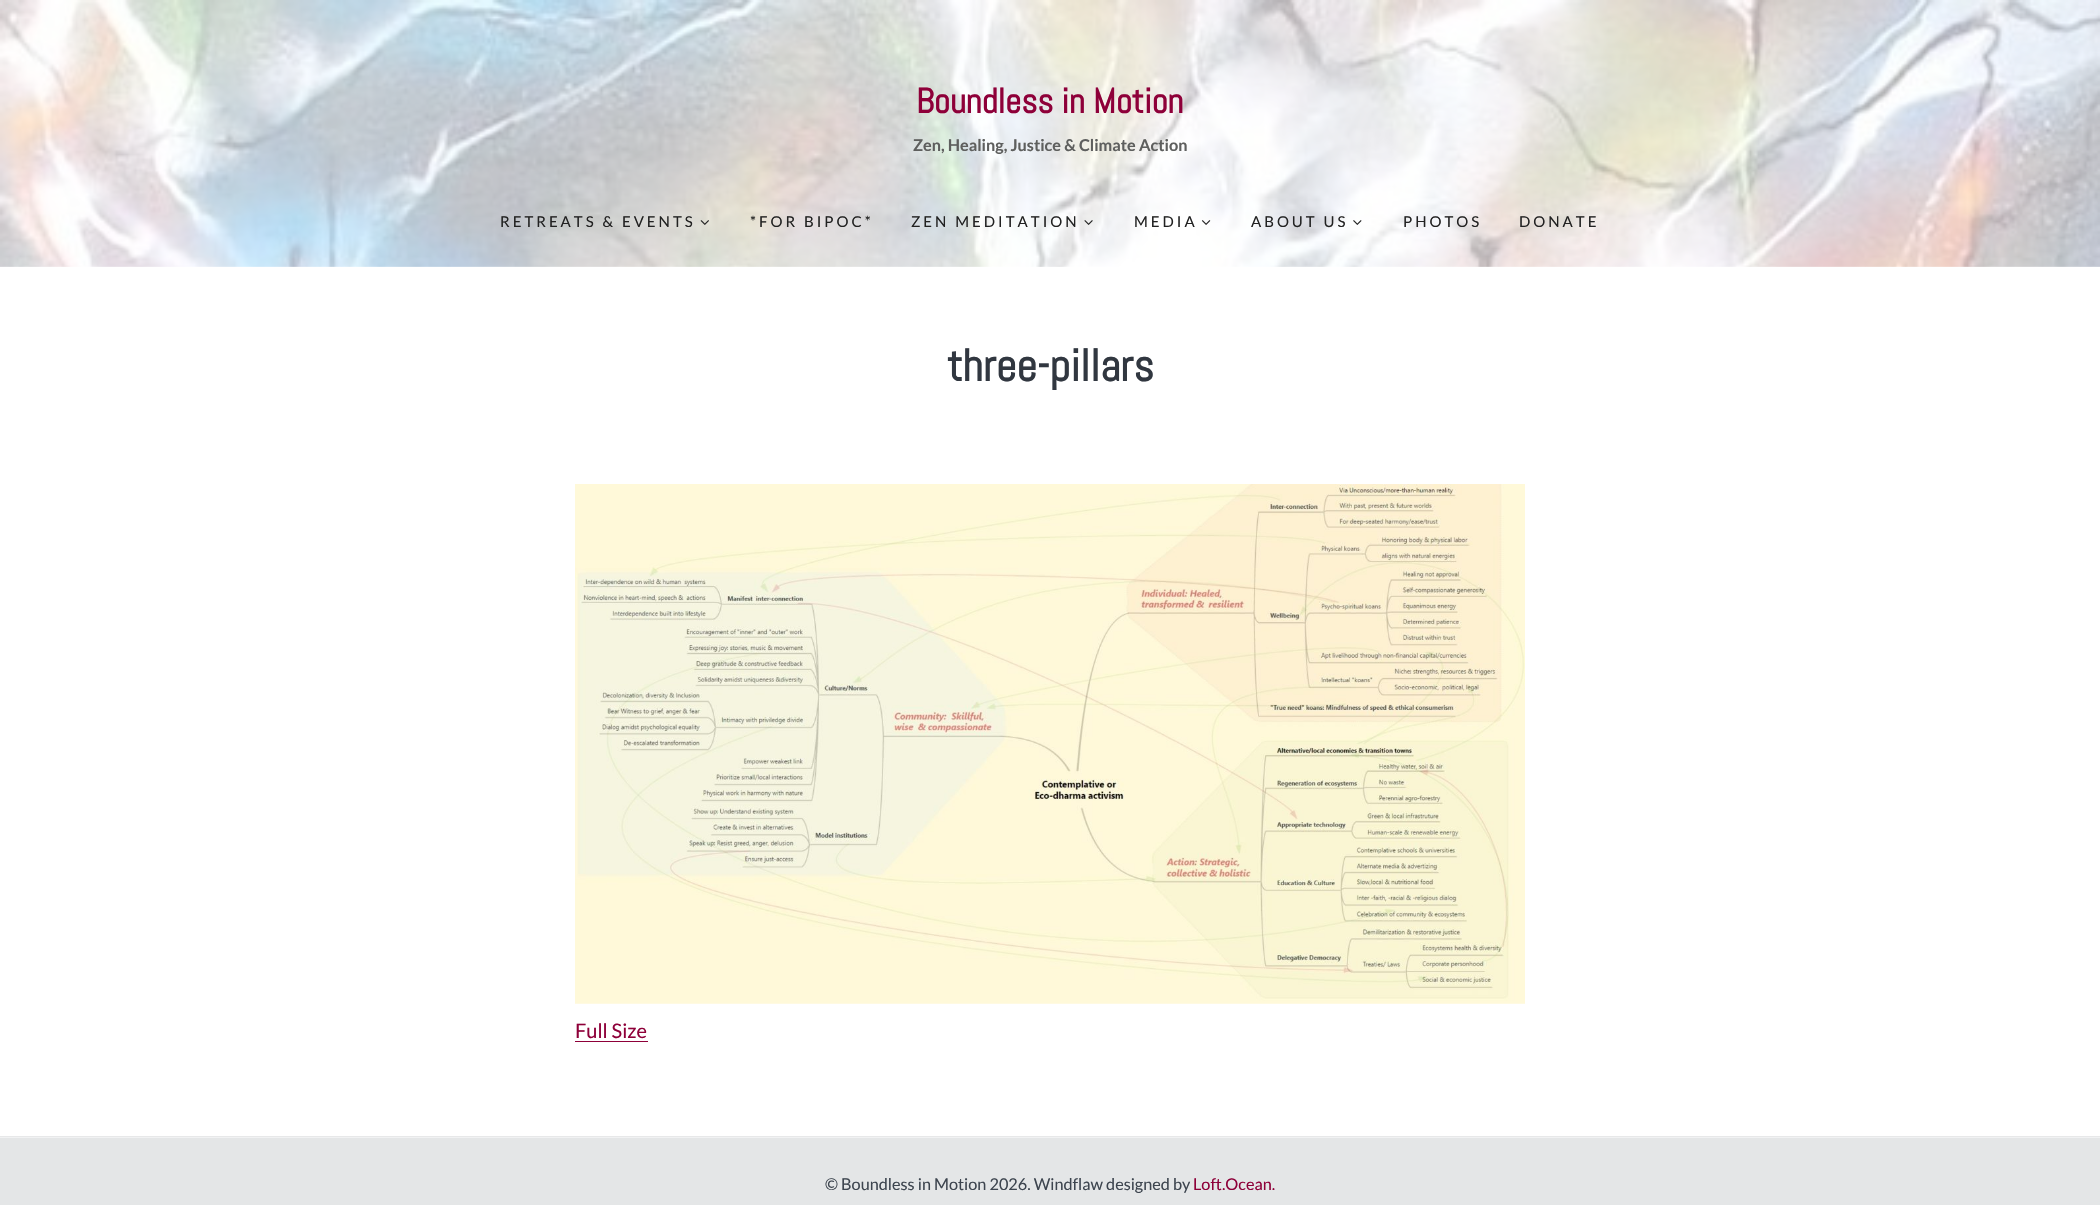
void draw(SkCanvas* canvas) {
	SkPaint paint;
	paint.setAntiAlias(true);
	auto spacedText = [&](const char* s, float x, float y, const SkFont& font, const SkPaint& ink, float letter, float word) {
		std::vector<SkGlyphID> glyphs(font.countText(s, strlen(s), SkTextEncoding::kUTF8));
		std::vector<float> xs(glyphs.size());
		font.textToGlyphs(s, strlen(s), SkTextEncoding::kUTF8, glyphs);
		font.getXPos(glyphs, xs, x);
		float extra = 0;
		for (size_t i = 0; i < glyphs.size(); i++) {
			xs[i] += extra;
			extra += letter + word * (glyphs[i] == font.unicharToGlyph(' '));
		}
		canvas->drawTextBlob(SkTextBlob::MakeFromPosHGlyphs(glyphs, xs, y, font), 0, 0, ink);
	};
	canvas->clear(0xffffffff);
	canvas->drawImageRect(SkImages::DeferredFromEncodedData(SkData::MakeFromFileName("img1.png")), SkRect::MakeXYWH(0, 0, 2100, 267), SkSamplingOptions());
	SkFont f1(fontMgr->matchFamilyStyle("Abel", SkFontStyle::Bold()), 35);
	f1.setSubpixel(true);
	paint.setColor(0xff8e0039);
	canvas->drawString("Boundless in Motion", 916, 113, f1, paint);
	SkFont f2(fontMgr->matchFamilyStyle("Lato", SkFontStyle::Bold()), 16.25);
	f2.setSubpixel(true);
	paint.setColor(0xff5e5f5e);
	canvas->drawString("Zen, Healing, Justice & Climate Action", 913, 151, f2, paint);
	SkFont f3(fontMgr->matchFamilyStyle("Lato", SkFontStyle::Normal()), 15);
	f3.setSubpixel(true);
	paint.setColor(0xff222222);
	spacedText("RETREATS & EVENTS", 500, 227, f3, paint, 3, 0);
	canvas->drawImageRect(SkImages::DeferredFromEncodedData(SkData::MakeFromFileName("img2.png")), SkRect::MakeXYWH(700, 220, 9, 5), SkSamplingOptions());
	spacedText("*FOR BIPOC*", 750, 227, f3, paint, 3, 0);
	spacedText("ZEN MEDITATION", 911, 227, f3, paint, 3, 0);
	canvas->drawImageRect(SkImages::DeferredFromEncodedData(SkData::MakeFromFileName("img3.png")), SkRect::MakeXYWH(1084, 220, 9, 5), SkSamplingOptions());
	spacedText("MEDIA", 1134, 227, f3, paint, 3, 0);
	canvas->drawImageRect(SkImages::DeferredFromEncodedData(SkData::MakeFromFileName("img4.png")), SkRect::MakeXYWH(1201, 220, 10, 5), SkSamplingOptions());
	spacedText("ABOUT US", 1251, 227, f3, paint, 3, 0);
	canvas->drawImageRect(SkImages::DeferredFromEncodedData(SkData::MakeFromFileName("img5.png")), SkRect::MakeXYWH(1353, 220, 9, 5), SkSamplingOptions());
	spacedText("PHOTOS", 1403, 227, f3, paint, 3, 0);
	spacedText("DONATE", 1519, 227, f3, paint, 3, 0);
	SkFont f4(fontMgr->matchFamilyStyle("Abel", SkFontStyle::Bold()), 45);
	f4.setSubpixel(true);
	paint.setColor(0xff313740);
	canvas->drawString("three-pillars", 947, 381, f4, paint);
	canvas->drawImageRect(SkImages::DeferredFromEncodedData(SkData::MakeFromFileName("img6.png")), SkRect::MakeXYWH(575, 484, 950, 520), SkSamplingOptions());
	SkFont f5(fontMgr->matchFamilyStyle("Lato", SkFontStyle::Normal()), 20);
	f5.setSubpixel(true);
	paint.setColor(0xff8e0039);
	canvas->drawString("Full Size", 575, 1038, f5, paint);
	canvas->drawRect(SkRect::MakeXYWH(575, 1041, 73, 1), paint);
	paint.setColor(0xfff1f2f3);
	canvas->drawRect(SkRect::MakeXYWH(0, 1137, 2100, 1), paint);
	paint.setColor(0xffe7e8e9);
	canvas->drawRect(SkRect::MakeXYWH(0, 1136, 2100, 1), paint);
	paint.setColor(0xffe4e6e7);
	canvas->drawRect(SkRect::MakeXYWH(0, 1138, 2100, 67), paint);
	SkFont f6(fontMgr->matchFamilyStyle("Lato", SkFontStyle::Normal()), 16.25);
	f6.setSubpixel(true);
	paint.setColor(0xff3d454f);
	canvas->drawString("© Boundless in Motion 2026. Windflaw designed by", 825, 1190, f6, paint);
	paint.setColor(0xff8e0039);
	canvas->drawString("Loft.Ocean.", 1193, 1190, f6, paint);
}
